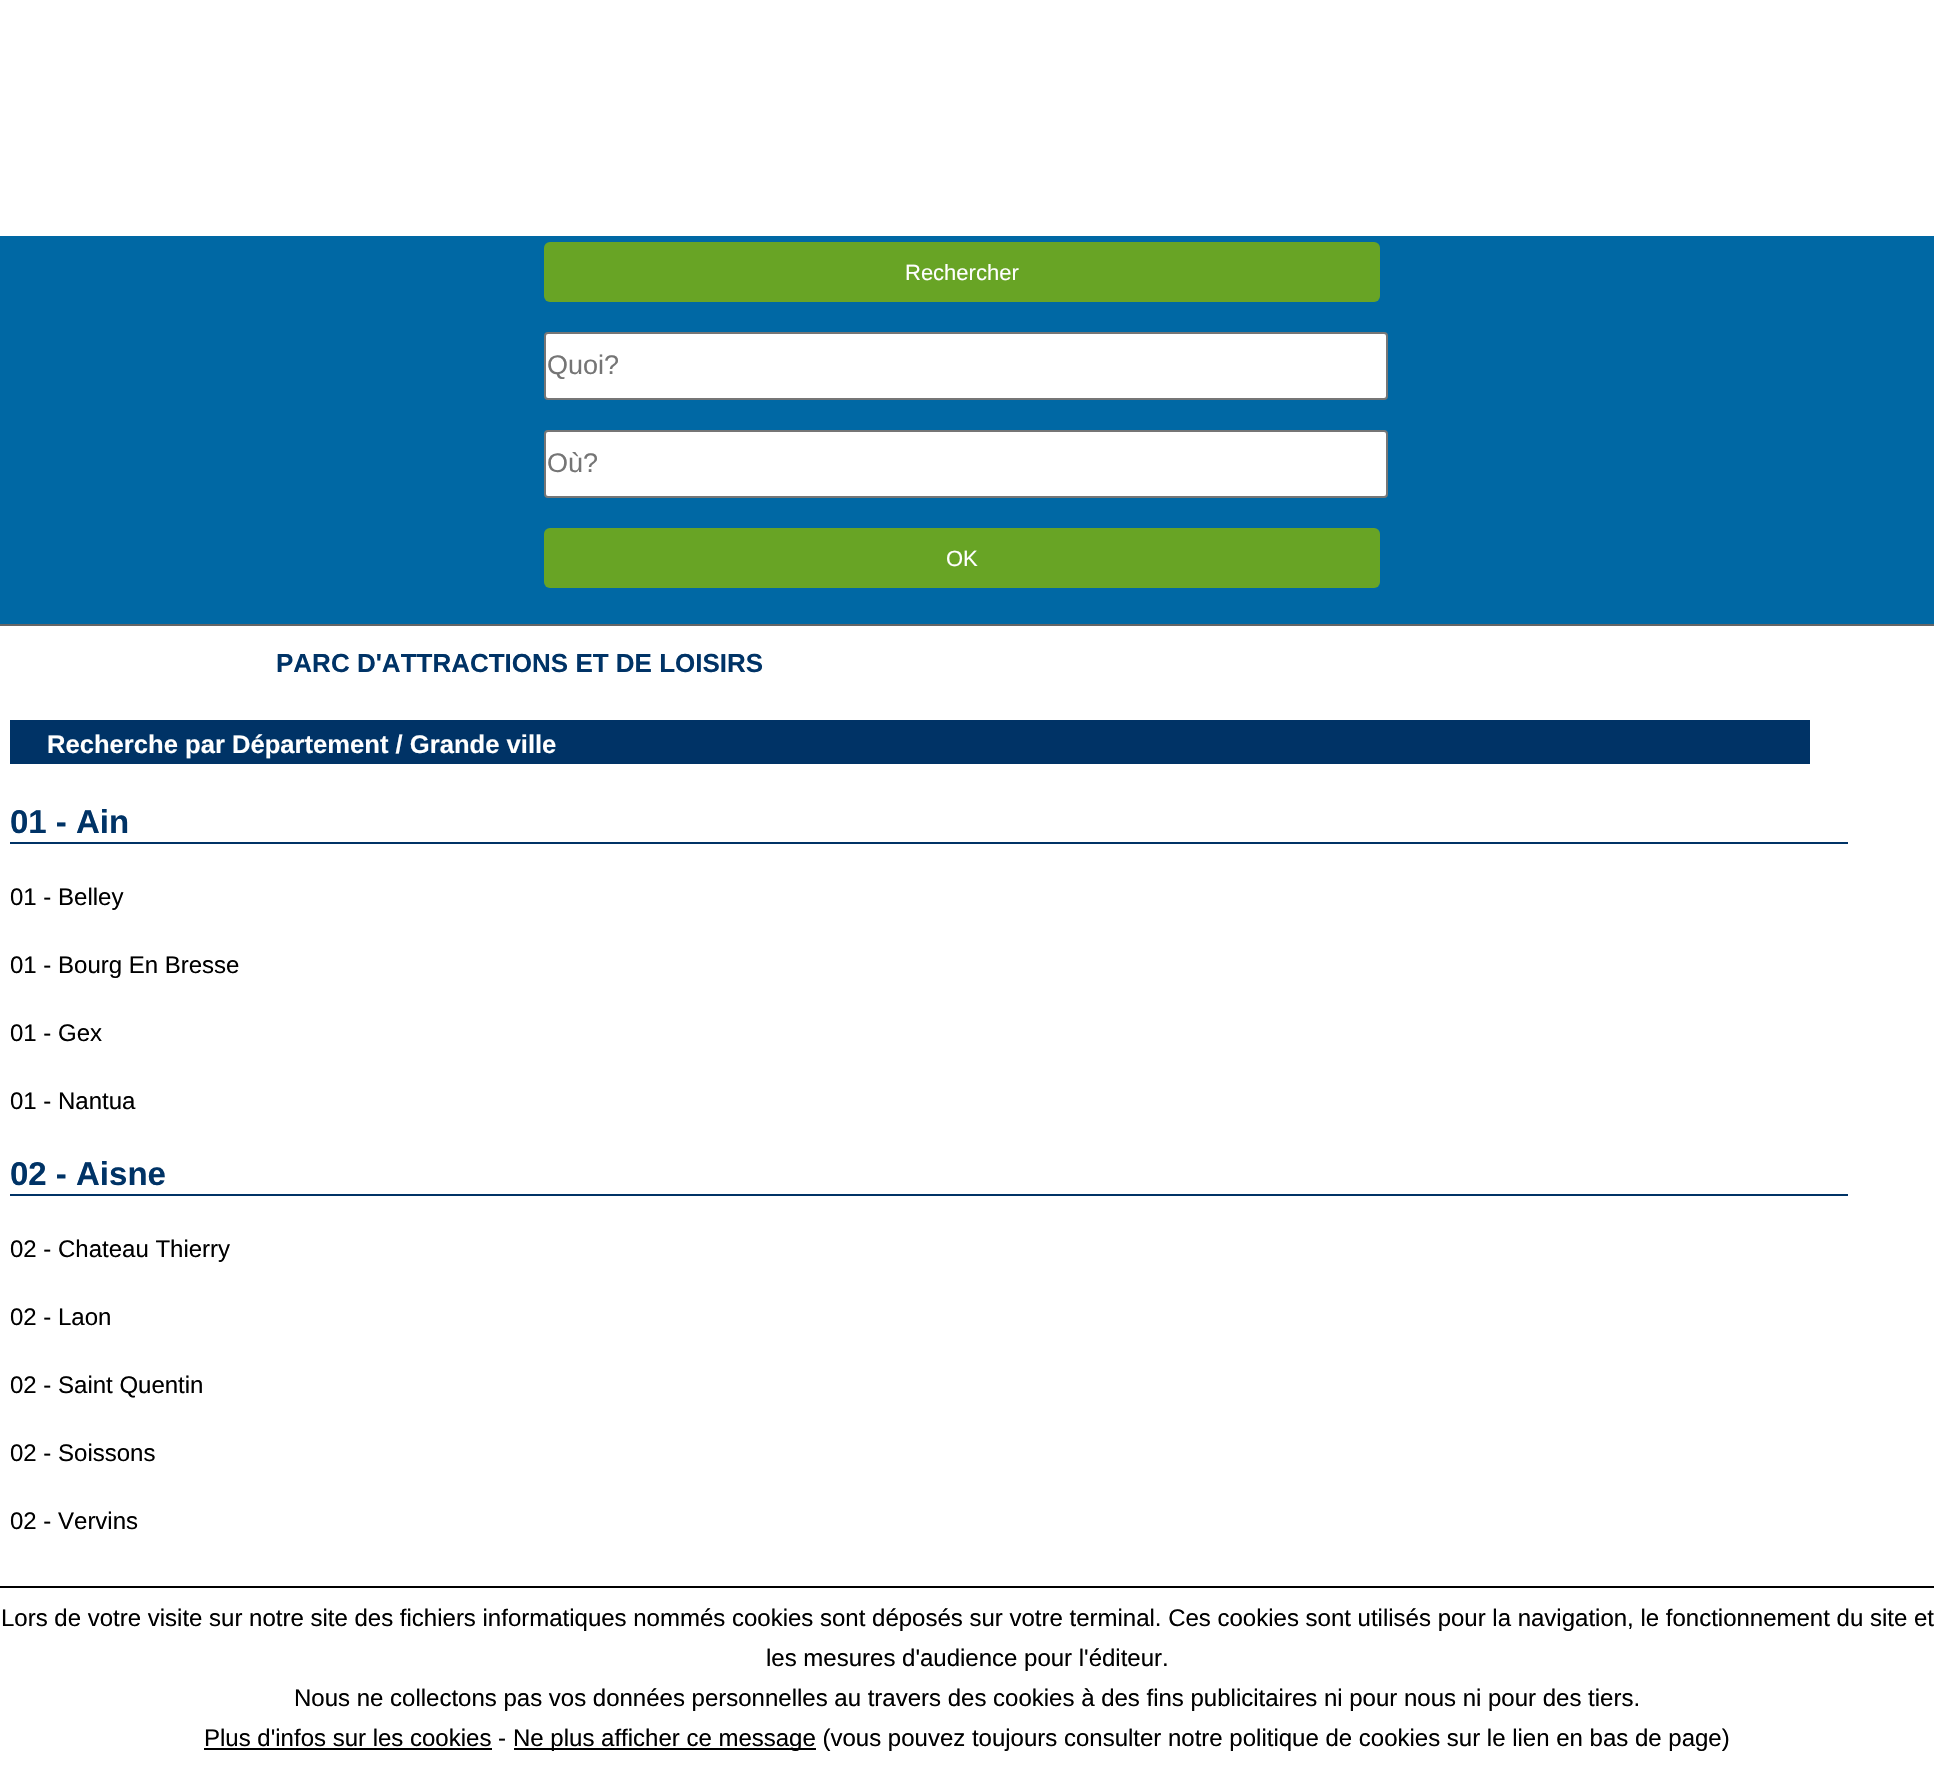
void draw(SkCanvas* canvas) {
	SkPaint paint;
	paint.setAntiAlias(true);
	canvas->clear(0xffffffff);
	paint.setColor(0xff0068a4);
	canvas->drawRect(SkRect::MakeXYWH(0, 236, 1934, 388), paint);
	paint.setColor(0xff666666);
	canvas->drawRect(SkRect::MakeXYWH(0, 624, 1934, 2), paint);
	paint.setColor(0xff68a425);
	canvas->drawRoundRect(SkRect::MakeXYWH(544, 242, 836, 60), 6, 6, paint);
	SkFont f1(fontMgr->matchFamilyStyle("Liberation Sans", SkFontStyle::Normal()), 22);
	f1.setSubpixel(true);
	paint.setColor(0xffffffff);
	canvas->drawString("Rechercher", 905, 280, f1, paint);
	canvas->drawRoundRect(SkRect::MakeXYWH(545, 333, 842, 66), 3, 3, paint);
	paint.setStroke(true);
	paint.setStrokeWidth(2);
	paint.setColor(0xff767676);
	canvas->drawRoundRect(SkRect::MakeXYWH(545, 333, 842, 66), 3, 3, paint);
	SkFont f2(fontMgr->matchFamilyStyle("Liberation Sans", SkFontStyle::Normal()), 27);
	f2.setSubpixel(true);
	paint.setStroke(false);
	paint.setColor(0xff757575);
	canvas->drawString("Quoi?", 547, 374, f2, paint);
	paint.setColor(0xffffffff);
	canvas->drawRoundRect(SkRect::MakeXYWH(545, 431, 842, 66), 3, 3, paint);
	paint.setStroke(true);
	paint.setColor(0xff767676);
	canvas->drawRoundRect(SkRect::MakeXYWH(545, 431, 842, 66), 3, 3, paint);
	paint.setStroke(false);
	paint.setColor(0xff757575);
	canvas->drawString("Où?", 547, 472, f2, paint);
	paint.setColor(0xff68a425);
	canvas->drawRoundRect(SkRect::MakeXYWH(544, 528, 836, 60), 6, 6, paint);
	paint.setColor(0xffffffff);
	canvas->drawString("OK", 946, 566, f1, paint);
	SkFont f3(fontMgr->matchFamilyStyle("Liberation Sans", SkFontStyle::Bold()), 26);
	f3.setSubpixel(true);
	paint.setColor(0xff003366);
	canvas->drawString("PARC D'ATTRACTIONS ET DE LOISIRS", 276, 672, f3, paint);
	canvas->drawRect(SkRect::MakeXYWH(10, 720, 1800, 44), paint);
	SkFont f4(fontMgr->matchFamilyStyle("Liberation Sans", SkFontStyle::Bold()), 25.6);
	f4.setSubpixel(true);
	paint.setColor(0xffffffff);
	canvas->drawString("Recherche par Département / Grande ville", 47, 753, f4, paint);
	paint.setColor(0xff003366);
	canvas->drawRect(SkRect::MakeXYWH(10, 842, 1838, 2), paint);
	SkFont f5(fontMgr->matchFamilyStyle("Liberation Sans", SkFontStyle::Bold()), 33);
	f5.setSubpixel(true);
	canvas->drawString("01 - Ain", 10, 833, f5, paint);
	SkFont f6(fontMgr->matchFamilyStyle("Liberation Sans", SkFontStyle::Normal()), 24);
	f6.setSubpixel(true);
	paint.setColor(0xff000000);
	canvas->drawString("01 - Belley", 10, 905, f6, paint);
	canvas->drawString("01 - Bourg En Bresse", 10, 973, f6, paint);
	canvas->drawString("01 - Gex", 10, 1041, f6, paint);
	canvas->drawString("01 - Nantua", 10, 1109, f6, paint);
	paint.setColor(0xff003366);
	canvas->drawRect(SkRect::MakeXYWH(10, 1194, 1838, 2), paint);
	canvas->drawString("02 - Aisne", 10, 1185, f5, paint);
	paint.setColor(0xff000000);
	canvas->drawString("02 - Chateau Thierry", 10, 1257, f6, paint);
	canvas->drawString("02 - Laon", 10, 1325, f6, paint);
	canvas->drawString("02 - Saint Quentin", 10, 1393, f6, paint);
	canvas->drawString("02 - Soissons", 10, 1461, f6, paint);
	canvas->drawString("02 - Vervins", 10, 1529, f6, paint);
	canvas->drawRect(SkRect::MakeXYWH(0, 1586, 1934, 2), paint);
	canvas->drawString("Lors de votre visite sur notre site des fichiers informatiques nommés cookies sont déposés sur votre terminal. Ces cookies sont utilisés pour la navigation, le fonctionnement du site et", 1, 1626, f6, paint);
	canvas->drawString("les mesures d'audience pour l'éditeur.", 766, 1666, f6, paint);
	canvas->drawString("Nous ne collectons pas vos données personnelles au travers des cookies à des fins publicitaires ni pour nous ni pour des tiers.", 294, 1706, f6, paint);
	canvas->drawString("Plus d'infos sur les cookies -", 204, 1746, f6, paint);
	canvas->drawRect(SkRect::MakeXYWH(204, 1748, 288, 2), paint);
	canvas->drawRect(SkRect::MakeXYWH(514, 1748, 302, 2), paint);
	canvas->drawString("Ne plus afficher ce message (vous pouvez toujours consulter notre politique de cookies sur le lien en bas de page)", 513, 1746, f6, paint);
}
